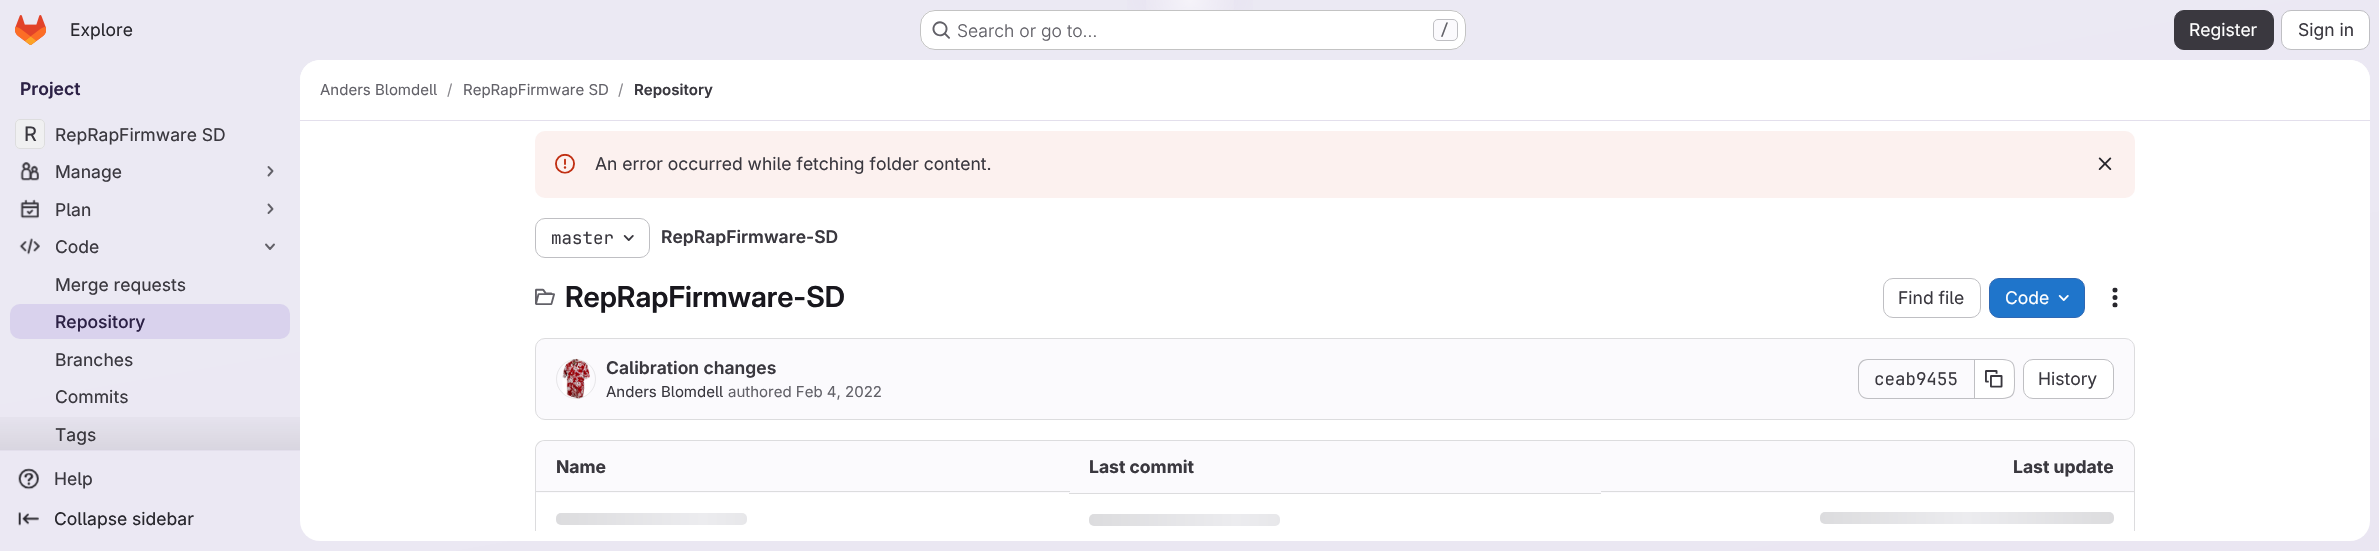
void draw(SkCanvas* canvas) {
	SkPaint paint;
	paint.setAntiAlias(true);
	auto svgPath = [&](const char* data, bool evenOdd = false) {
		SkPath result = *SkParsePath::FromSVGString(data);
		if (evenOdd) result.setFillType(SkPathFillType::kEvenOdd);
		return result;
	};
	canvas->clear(0xffffffff);
	{
		const SkColor colors[] = {0xffeae6f2, 0xffebe9f3};
		const float stops[] = {0, 0.7};
		const SkPoint ends[] = {{1273, 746}, {1107, -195}};
		paint.setShader(SkGradientShader::MakeLinear(ends, colors, stops, 2, SkTileMode::kClamp));
		paint.setAlpha(255);
	}
	canvas->drawRect(SkRect::MakeXYWH(0, 0, 2379, 551), paint);
	{
		const SkColor colors[] = {0xffe6e1f1, 0x00e6e1f1};
		const float stops[] = {0, 0.07};
		SkMatrix m = SkMatrix::Translate(1190, 0).preScale(1190, 551);
		paint.setShader(SkGradientShader::MakeRadial({0, 0}, 1, colors, stops, 2, SkTileMode::kClamp, 0, &m));
		paint.setAlpha(255);
	}
	canvas->drawRect(SkRect::MakeXYWH(1127, 0, 126, 10), paint);
	{
		const SkColor colors[] = {0xffe5e1f1, 0x00e5e1f1};
		const float stops[] = {0, 0.05};
		SkMatrix m = SkMatrix::Translate(1190, 0).preScale(1190, 551);
		paint.setShader(SkGradientShader::MakeRadial({0, 0}, 1, colors, stops, 2, SkTileMode::kClamp, 0, &m));
		paint.setAlpha(255);
	}
	canvas->drawRect(SkRect::MakeXYWH(1182, 7, 16, 1), paint);
	{
		const SkColor colors[] = {0x99ffffff, 0x00ffffff};
		const float stops[] = {0, 0.04};
		paint.setShader(SkGradientShader::MakeRadial({1190, 0}, 1311, colors, stops, 2, SkTileMode::kClamp));
		paint.setAlpha(255);
	}
	canvas->drawRect(SkRect::MakeXYWH(1146, 0, 88, 42), paint);
	canvas->drawImageRect(SkImages::DeferredFromEncodedData(SkData::MakeFromFileName("img1.png")), SkRect::MakeXYWH(15, 15, 31, 30), SkSamplingOptions());
	SkFont f1(fontMgr->matchFamilyStyle("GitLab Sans", SkFontStyle::Normal()), 17.5);
	f1.setSubpixel(true);
	paint.setShader(nullptr);
	paint.setColor(0xff28272d);
	canvas->drawString("Explore", 70, 36, f1, paint);
	paint.setColor(0xffffffff);
	canvas->drawRoundRect(SkRect::MakeXYWH(920, 10, 546, 40), 15, 15, paint);
	paint.setStroke(true);
	paint.setStrokeWidth(1);
	paint.setColor(0x3d050506);
	canvas->drawRoundRect(SkRect::MakeXYWH(920.5, 10.5, 545, 39), 14.5, 14.5, paint);
	canvas->drawImageRect(SkImages::DeferredFromEncodedData(SkData::MakeFromFileName("img2.png")), SkRect::MakeXYWH(932, 21, 18, 18), SkSamplingOptions());
	SkFont f2(fontMgr->matchFamilyStyle("GitLab Sans", SkFontStyle(300, SkFontStyle::kNormal_Width, SkFontStyle::kUpright_Slant)), 17.5);
	f2.setSubpixel(true);
	paint.setStroke(false);
	paint.setColor(0xff626168);
	canvas->drawString("Search or go to…", 957, 37, f2, paint);
	paint.setColor(0xfffbfafd);
	canvas->drawRoundRect(SkRect::MakeXYWH(1433.5, 19.5, 24, 21), 4.5, 4.5, paint);
	paint.setStroke(true);
	paint.setColor(0xffbfbfc3);
	canvas->drawRoundRect(SkRect::MakeXYWH(1433.5, 19.5, 24, 21), 4.5, 4.5, paint);
	SkFont f3(fontMgr->matchFamilyStyle("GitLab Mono", SkFontStyle(500, SkFontStyle::kNormal_Width, SkFontStyle::kUpright_Slant)), 15);
	f3.setSubpixel(true);
	paint.setStroke(false);
	paint.setColor(0xff626168);
	canvas->drawString("/", 1440, 35, f3, paint);
	paint.setColor(0xff3a383f);
	canvas->drawRoundRect(SkRect::MakeXYWH(2174.5, 10.5, 99, 39), 9.5, 9.5, paint);
	paint.setStroke(true);
	canvas->drawRoundRect(SkRect::MakeXYWH(2174.5, 10.5, 99, 39), 9.5, 9.5, paint);
	paint.setStroke(false);
	paint.setColor(0xffffffff);
	canvas->drawString("Register", 2189, 36, f1, paint);
	canvas->drawRoundRect(SkRect::MakeXYWH(2281.5, 10.5, 88, 39), 9.5, 9.5, paint);
	paint.setStroke(true);
	paint.setColor(0xffbfbfc3);
	canvas->drawRoundRect(SkRect::MakeXYWH(2281.5, 10.5, 88, 39), 9.5, 9.5, paint);
	paint.setStroke(false);
	paint.setColor(0xff3a383f);
	canvas->drawString("Sign in", 2298, 36, f1, paint);
	SkFont f4(fontMgr->matchFamilyStyle("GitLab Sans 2", SkFontStyle(600, SkFontStyle::kNormal_Width, SkFontStyle::kUpright_Slant)), 17.5);
	f4.setSubpixel(true);
	paint.setColor(0xff2c2145);
	canvas->drawString("Project", 20, 95, f4, paint);
	paint.setColor(0xffe3dfec);
	canvas->drawRect(SkRect::MakeXYWH(0, 450, 300, 1), paint);
	paint.setColor(0xffffffff);
	canvas->drawRoundRect(SkRect::MakeXYWH(15, 119, 30, 30), 5, 5, paint);
	paint.setColor(0x3dbfbfc3);
	canvas->drawRoundRect(SkRect::MakeXYWH(15, 119, 30, 30), 5, 5, paint);
	paint.setStroke(true);
	paint.setColor(0xffddddde);
	canvas->drawRoundRect(SkRect::MakeXYWH(15.5, 119.5, 29, 29), 4.5, 4.5, paint);
	SkFont f5(fontMgr->matchFamilyStyle("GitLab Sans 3", SkFontStyle::Normal()), 20);
	f5.setSubpixel(true);
	paint.setStroke(false);
	paint.setColor(0xff3a383f);
	canvas->drawString("R", 24, 141, f5, paint);
	SkFont f6(fontMgr->matchFamilyStyle("GitLab Sans 2", SkFontStyle::Normal()), 17.5);
	f6.setSubpixel(true);
	canvas->drawString("RepRapFirmware SD", 55, 141, f6, paint);
	canvas->drawImageRect(SkImages::DeferredFromEncodedData(SkData::MakeFromFileName("img3.png")), SkRect::MakeXYWH(20, 162, 19, 19), SkSamplingOptions());
	canvas->drawString("Manage", 55, 178, f6, paint);
	paint.setStroke(true);
	paint.setStrokeWidth(1.9);
	paint.setStrokeCap(SkPaint::kRound_Cap);
	paint.setStrokeJoin(SkPaint::kRound_Join);
	paint.setColor(0xff626168);
	canvas->drawPath(svgPath("M268.5 167L272.5 171L268.5 175.5"), paint);
	canvas->drawImageRect(SkImages::DeferredFromEncodedData(SkData::MakeFromFileName("img4.png")), SkRect::MakeXYWH(20, 199, 19, 20), SkSamplingOptions());
	paint.setStroke(false);
	paint.setColor(0xff3a383f);
	canvas->drawString("Plan", 55, 216, f6, paint);
	paint.setStroke(true);
	paint.setColor(0xff626168);
	canvas->drawPath(svgPath("M268.5 204.5L272.5 209L268.5 213"), paint);
	canvas->drawImageRect(SkImages::DeferredFromEncodedData(SkData::MakeFromFileName("img5.png")), SkRect::MakeXYWH(19, 238, 21, 17), SkSamplingOptions());
	paint.setStroke(false);
	paint.setColor(0xff3a383f);
	canvas->drawString("Code", 55, 253, f6, paint);
	paint.setStroke(true);
	paint.setColor(0xff626168);
	canvas->drawPath(svgPath("M274 244.5L270 249L266 244.5"), paint);
	paint.setStroke(false);
	paint.setColor(0xff3a383f);
	canvas->drawString("Merge requests", 55, 291, f6, paint);
	paint.setColor(0xffd9d2ed);
	canvas->drawRoundRect(SkRect::MakeXYWH(10, 304, 280, 35), 10, 10, paint);
	SkFont f7(fontMgr->matchFamilyStyle("GitLab Sans", SkFontStyle(500, SkFontStyle::kNormal_Width, SkFontStyle::kUpright_Slant)), 17.5);
	f7.setSubpixel(true);
	paint.setColor(0xff2c2145);
	canvas->drawString("Repository", 55, 328, f7, paint);
	paint.setColor(0xff3a383f);
	canvas->drawString("Branches", 55, 366, f6, paint);
	canvas->drawString("Commits", 55, 403, f6, paint);
	canvas->drawString("Tags", 55, 441, f6, paint);
	{
		const SkColor colors[] = {0x00050506, 0x14050506};
		const float stops[] = {0, 1};
		const SkPoint ends[] = {{150, 405}, {150, 450}};
		paint.setShader(SkGradientShader::MakeLinear(ends, colors, stops, 2, SkTileMode::kClamp));
		paint.setAlpha(255);
	}
	canvas->drawRect(SkRect::MakeXYWH(0, 417, 300, 33), paint);
	canvas->drawImageRect(SkImages::DeferredFromEncodedData(SkData::MakeFromFileName("img6.png")), SkRect::MakeXYWH(18, 468, 21, 22), SkSamplingOptions());
	paint.setShader(nullptr);
	paint.setColor(0xff3a383f);
	canvas->drawString("Help", 54, 485, f6, paint);
	canvas->drawImageRect(SkImages::DeferredFromEncodedData(SkData::MakeFromFileName("img7.png")), SkRect::MakeXYWH(18, 512, 21, 14), SkSamplingOptions());
	paint.setColor(0xff28272d);
	canvas->drawString("Collapse sidebar", 54, 525, f6, paint);
	paint.setColor(0xffffffff);
	canvas->drawRoundRect(SkRect::MakeXYWH(300, 60, 2070, 481), 20, 20, paint);
	canvas->drawPath(svgPath("M320 60H2350C2361 60 2370 69 2370 80V121H300V80C300 69 309 60 320 60Z"), paint);
	paint.setColor(0xffe3dfec);
	canvas->drawRect(SkRect::MakeXYWH(300, 120, 2070, 1), paint);
	SkFont f8(fontMgr->matchFamilyStyle("GitLab Sans", SkFontStyle::Normal()), 15);
	f8.setSubpixel(true);
	paint.setColor(0xff626168);
	canvas->drawString("Anders Blomdell", 320, 95, f8, paint);
	paint.setColor(0xff89888d);
	canvas->drawString("/", 447, 95, f8, paint);
	paint.setColor(0xff626168);
	canvas->drawString("RepRapFirmware SD", 463, 95, f8, paint);
	paint.setColor(0xff89888d);
	canvas->drawString("/", 618, 95, f8, paint);
	SkFont f9(fontMgr->matchFamilyStyle("GitLab Sans 2", SkFontStyle(600, SkFontStyle::kNormal_Width, SkFontStyle::kUpright_Slant)), 15);
	f9.setSubpixel(true);
	paint.setColor(0xff3a383f);
	canvas->drawString("Repository", 634, 95, f9, paint);
	paint.setColor(0xfffcf1ef);
	canvas->drawRoundRect(SkRect::MakeXYWH(535, 131, 1600, 67), 10, 10, paint);
	canvas->drawImageRect(SkImages::DeferredFromEncodedData(SkData::MakeFromFileName("img8.png")), SkRect::MakeXYWH(555, 153, 20, 21), SkSamplingOptions());
	paint.setColor(0xff3a383f);
	canvas->drawString("An error occurred while fetching folder content.", 595, 170, f1, paint);
	canvas->drawImageRect(SkImages::DeferredFromEncodedData(SkData::MakeFromFileName("img9.png")), SkRect::MakeXYWH(2098, 157, 14, 13), SkSamplingOptions());
	paint.setStroke(true);
	paint.setStrokeWidth(1);
	paint.setStrokeCap(SkPaint::kButt_Cap);
	paint.setStrokeJoin(SkPaint::kMiter_Join);
	paint.setColor(0xffbfbfc3);
	canvas->drawRoundRect(SkRect::MakeXYWH(535.5, 218.5, 114, 39), 9.5, 9.5, paint);
	SkFont f10(fontMgr->matchFamilyStyle("GitLab Mono", SkFontStyle::Normal()), 17.5);
	f10.setSubpixel(true);
	paint.setStroke(false);
	paint.setColor(0xff3a383f);
	canvas->drawString("master", 551, 244, f10, paint);
	canvas->drawImageRect(SkImages::DeferredFromEncodedData(SkData::MakeFromFileName("img10.png")), SkRect::MakeXYWH(623, 235, 11, 6), SkSamplingOptions());
	canvas->save();
	canvas->clipPath(svgPath("M665 225H833C836 225 838 227 838 230V241C838 244 836 246 833 246H665C662 246 660 244 660 241V230C660 227 662 225 665 225Z"), true);
	canvas->drawString("RepRapFirmware-SD", 661, 243, f4, paint);
	canvas->restore();
	canvas->drawImageRect(SkImages::DeferredFromEncodedData(SkData::MakeFromFileName("img11.png")), SkRect::MakeXYWH(535, 288, 20, 17), SkSamplingOptions());
	SkFont f11(fontMgr->matchFamilyStyle("GitLab Sans", SkFontStyle(600, SkFontStyle::kNormal_Width, SkFontStyle::kUpright_Slant)), 28.75);
	f11.setSubpixel(true);
	paint.setColor(0xff18171d);
	canvas->drawString("RepRapFirmware-SD", 565, 307, f11, paint);
	paint.setStroke(true);
	paint.setColor(0xffbfbfc3);
	canvas->drawRoundRect(SkRect::MakeXYWH(1883.5, 278.5, 97, 39), 9.5, 9.5, paint);
	paint.setStroke(false);
	paint.setColor(0xff3a383f);
	canvas->drawString("Find file", 1898, 304, f1, paint);
	paint.setColor(0xff1f75cb);
	canvas->drawRoundRect(SkRect::MakeXYWH(1989.5, 278.5, 95, 39), 9.5, 9.5, paint);
	paint.setStroke(true);
	paint.setColor(0xff2f68b4);
	canvas->drawRoundRect(SkRect::MakeXYWH(1989.5, 278.5, 95, 39), 9.5, 9.5, paint);
	paint.setStroke(false);
	paint.setColor(0xffffffff);
	canvas->drawString("Code", 2005, 304, f1, paint);
	canvas->drawImageRect(SkImages::DeferredFromEncodedData(SkData::MakeFromFileName("img12.png")), SkRect::MakeXYWH(2058, 295, 11, 6), SkSamplingOptions());
	canvas->drawImageRect(SkImages::DeferredFromEncodedData(SkData::MakeFromFileName("img13.png")), SkRect::MakeXYWH(2112, 287, 6, 21), SkSamplingOptions());
	paint.setColor(0xfffbfafd);
	canvas->drawRoundRect(SkRect::MakeXYWH(535.5, 338.5, 1599, 81), 9.5, 9.5, paint);
	paint.setStroke(true);
	paint.setColor(0xffdcdcde);
	canvas->drawRoundRect(SkRect::MakeXYWH(535.5, 338.5, 1599, 81), 9.5, 9.5, paint);
	canvas->drawImageRect(SkImages::DeferredFromEncodedData(SkData::MakeFromFileName("img14.png")), SkRect::MakeXYWH(562, 358, 28, 41), SkSamplingOptions());
	paint.setColor(0x14050506);
	canvas->drawCircle(576, 379, 19.5, paint);
	paint.setStroke(false);
	paint.setColor(0xff3a383f);
	canvas->drawString("Calibration changes", 606, 374, f4, paint);
	canvas->drawString("Anders Blomdell", 606, 397, f8, paint);
	paint.setColor(0xff626168);
	canvas->drawString("authored Feb 4, 2022", 728, 397, f8, paint);
	paint.setColor(0xffbfbfc3);
	canvas->drawPath(svgPath("M1868 359H1974V399H1868C1862 399 1858 394 1858 389V369C1858 363 1862 359 1868 359ZM1868 360H1974V398H1868C1863 398 1859 394 1859 389V369C1859 364 1863 360 1868 360Z", true), paint);
	paint.setColor(0xff3a383f);
	canvas->drawString("ceab9455", 1874, 385, f10, paint);
	paint.setColor(0xffffffff);
	canvas->drawPath(svgPath("M1975 360H2005C2010 360 2014 364 2014 369V389C2014 394 2010 398 2005 398H1975Z"), paint);
	paint.setColor(0xffbfbfc3);
	canvas->drawPath(svgPath("M1975 359H2000C2016 359 2015 365 2015 379C2015 393 2016 399 2000 399H1975ZM1975 360H2000C2015 360 2014 365 2014 379C2014 392 2015 398 2000 398H1975Z", true), paint);
	canvas->drawRect(SkRect::MakeXYWH(1974, 359, 1, 40), paint);
	canvas->drawImageRect(SkImages::DeferredFromEncodedData(SkData::MakeFromFileName("img15.png")), SkRect::MakeXYWH(1985, 370, 18, 18), SkSamplingOptions());
	paint.setColor(0xffffffff);
	canvas->drawRoundRect(SkRect::MakeXYWH(2023.5, 359.5, 90, 39), 9.5, 9.5, paint);
	paint.setStroke(true);
	paint.setColor(0xffbfbfc3);
	canvas->drawRoundRect(SkRect::MakeXYWH(2023.5, 359.5, 90, 39), 9.5, 9.5, paint);
	paint.setStroke(false);
	paint.setColor(0xff3a383f);
	canvas->drawString("History", 2038, 385, f1, paint);
	canvas->save();
	canvas->clipRect(SkRect::MakeXYWH(300, 121, 2070, 410));
	paint.setColor(0xffdcdcde);
	canvas->drawPath(svgPath("M545 440C539 440 535 444 535 450V541H536V450C536 445 540 441 545 441H2125C2130 441 2134 445 2134 450V541H2135V450C2135 444 2131 440 2125 440Z"), paint);
	canvas->restore();
	paint.setColor(0xfffbfafd);
	canvas->drawPath(svgPath("M545 441H1069V493H536V450C536 445 540 441 545 441Z"), paint);
	SkFont f12(fontMgr->matchFamilyStyle("GitLab Sans", SkFontStyle::Bold()), 17.5);
	f12.setSubpixel(true);
	paint.setColor(0xff3a383f);
	canvas->drawString("Name", 556, 473, f12, paint);
	paint.setColor(0xfffbfafd);
	canvas->drawRect(SkRect::MakeXYWH(1069, 441, 532, 52), paint);
	paint.setColor(0xff3a383f);
	canvas->drawString("Last commit", 1089, 473, f12, paint);
	paint.setColor(0xfffbfafd);
	canvas->drawPath(svgPath("M1601 441H2125C2130 441 2134 445 2134 450V493H1601Z"), paint);
	paint.setColor(0xff3a383f);
	canvas->drawString("Last update", 2013, 473, f12, paint);
	paint.setColor(0xffdcdcde);
	canvas->drawRect(SkRect::MakeXYWH(536, 491, 534, 1), paint);
	{
		const SkColor colors[] = {0xffdcdcde, 0xffececef, 0xffdcdcde};
		const float stops[] = {0, 0.5, 1};
		const SkPoint ends[] = {{556, 513}, {850, 513}};
		paint.setShader(SkGradientShader::MakeLinear(ends, colors, stops, 3, SkTileMode::kClamp));
		paint.setAlpha(255);
	}
	canvas->drawRoundRect(SkRect::MakeXYWH(556, 513, 191, 12), 5, 5, paint);
	paint.setShader(nullptr);
	paint.setColor(0xffdcdcde);
	canvas->drawRect(SkRect::MakeXYWH(1069, 493, 532, 1), paint);
	{
		const SkColor colors[] = {0xffdcdcde, 0xffececef, 0xffdcdcde};
		const float stops[] = {0, 0.5, 1};
		const SkPoint ends[] = {{1089, 514}, {1383, 514}};
		paint.setShader(SkGradientShader::MakeLinear(ends, colors, stops, 3, SkTileMode::kClamp));
		paint.setAlpha(255);
	}
	canvas->drawRoundRect(SkRect::MakeXYWH(1089, 514, 191, 12), 5, 5, paint);
	paint.setShader(nullptr);
	paint.setColor(0xffdcdcde);
	canvas->drawRect(SkRect::MakeXYWH(1601, 491, 533, 1), paint);
	{
		const SkColor colors[] = {0xffdcdcde, 0xffececef, 0xffdcdcde};
		const float stops[] = {0, 0.5, 1};
		const SkPoint ends[] = {{1820, 512}, {2114, 512}};
		paint.setShader(SkGradientShader::MakeLinear(ends, colors, stops, 3, SkTileMode::kClamp));
		paint.setAlpha(255);
	}
	canvas->drawRoundRect(SkRect::MakeXYWH(1820, 512, 294, 12), 5, 5, paint);
}
